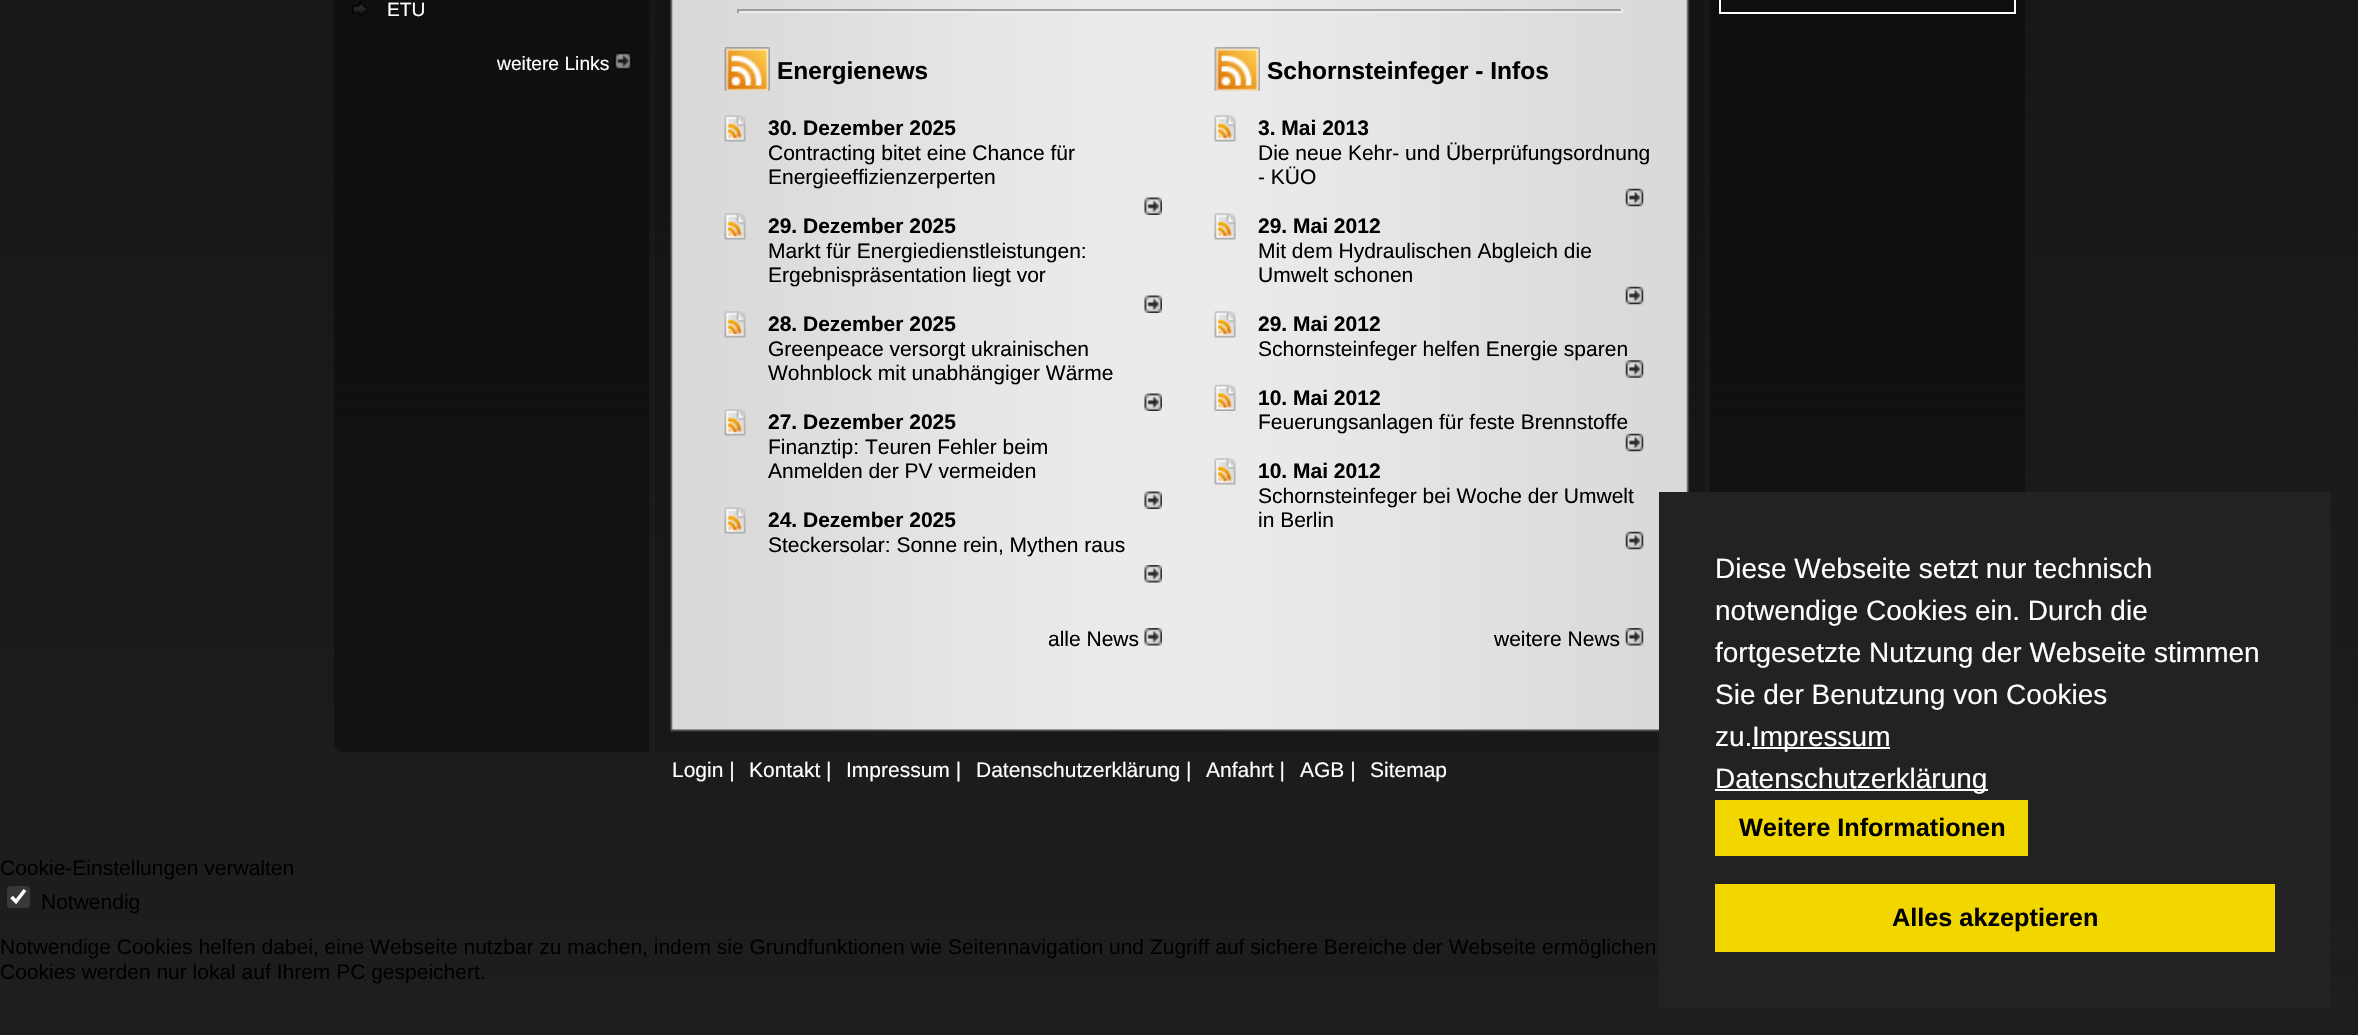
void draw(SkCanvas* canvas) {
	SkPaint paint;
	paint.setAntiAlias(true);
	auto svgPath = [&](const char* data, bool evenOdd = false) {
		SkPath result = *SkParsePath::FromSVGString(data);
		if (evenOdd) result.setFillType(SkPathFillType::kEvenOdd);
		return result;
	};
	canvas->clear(0xffffffff);
	canvas->drawImageRect(SkImages::DeferredFromEncodedData(SkData::MakeFromFileName("img1.png")), SkRect::MakeXYWH(0, 0, 2358, 1035), SkSamplingOptions());
	paint.setColor(0x5c000000);
	canvas->drawRect(SkRect::MakeXYWH(334, 0, 315, 726), paint);
	canvas->drawImageRect(SkImages::DeferredFromEncodedData(SkData::MakeFromFileName("img2.png")), SkRect::MakeXYWH(352, 1, 17, 16), SkSamplingOptions());
	SkFont f1(fontMgr->matchFamilyStyle("Liberation Sans", SkFontStyle::Normal()), 19.25);
	f1.setSubpixel(true);
	paint.setColor(0xffffffff);
	canvas->drawString("ETU", 387, 16, f1, paint);
	canvas->drawString("weitere Links", 497, 70, f1, paint);
	canvas->drawImageRect(SkImages::DeferredFromEncodedData(SkData::MakeFromFileName("img3.png")), SkRect::MakeXYWH(614, 52, 18, 18), SkSamplingOptions());
	paint.setColor(0x5c000000);
	canvas->drawRect(SkRect::MakeXYWH(1710, 0, 315, 492), paint);
	paint.setStroke(true);
	paint.setStrokeWidth(2);
	paint.setColor(0xffffffff);
	canvas->drawRect(SkRect::MakeXYWH(1720, -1, 295, 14), paint);
	canvas->drawImageRect(SkImages::DeferredFromEncodedData(SkData::MakeFromFileName("img4.png")), SkRect::MakeXYWH(655, 0, 1049, 726), SkSamplingOptions());
	paint.setStroke(false);
	paint.setColor(0xff9f9f9f);
	canvas->drawRect(SkRect::MakeXYWH(737, 9, 885, 2), paint);
	paint.setColor(0xffeeeeee);
	canvas->drawRect(SkRect::MakeXYWH(1621, 9, 2, 4), paint);
	canvas->drawRect(SkRect::MakeXYWH(737, 11, 885, 2), paint);
	paint.setColor(0xff9f9f9f);
	canvas->drawRect(SkRect::MakeXYWH(737, 9, 2, 4), paint);
	canvas->drawImageRect(SkImages::DeferredFromEncodedData(SkData::MakeFromFileName("img5.png")), SkRect::MakeXYWH(724, 47, 46, 44), SkSamplingOptions());
	SkFont f2(fontMgr->matchFamilyStyle("Liberation Sans", SkFontStyle::Bold()), 24.5);
	f2.setSubpixel(true);
	paint.setColor(0xff000000);
	canvas->drawString("Energienews", 777, 79, f2, paint);
	canvas->drawImageRect(SkImages::DeferredFromEncodedData(SkData::MakeFromFileName("img6.png")), SkRect::MakeXYWH(724, 115, 22, 27), SkSamplingOptions());
	SkFont f3(fontMgr->matchFamilyStyle("Liberation Sans", SkFontStyle::Bold()), 21);
	f3.setSubpixel(true);
	canvas->drawString("30. Dezember 2025", 768, 135, f3, paint);
	SkFont f4(fontMgr->matchFamilyStyle("Liberation Sans", SkFontStyle::Normal()), 21);
	f4.setSubpixel(true);
	canvas->drawString("Contracting bitet eine Chance für", 768, 160, f4, paint);
	canvas->drawString("Energieeffizienzerperten", 768, 184, f4, paint);
	canvas->drawImageRect(SkImages::DeferredFromEncodedData(SkData::MakeFromFileName("img7.png")), SkRect::MakeXYWH(1144, 197, 18, 18), SkSamplingOptions());
	canvas->drawImageRect(SkImages::DeferredFromEncodedData(SkData::MakeFromFileName("img6.png")), SkRect::MakeXYWH(724, 213, 22, 27), SkSamplingOptions());
	canvas->drawString("29. Dezember 2025", 768, 233, f3, paint);
	canvas->drawString("Markt für Energiedienstleistungen:", 768, 258, f4, paint);
	canvas->drawString("Ergebnispräsentation liegt vor", 768, 282, f4, paint);
	canvas->drawImageRect(SkImages::DeferredFromEncodedData(SkData::MakeFromFileName("img7.png")), SkRect::MakeXYWH(1144, 295, 18, 18), SkSamplingOptions());
	canvas->drawImageRect(SkImages::DeferredFromEncodedData(SkData::MakeFromFileName("img6.png")), SkRect::MakeXYWH(724, 311, 22, 27), SkSamplingOptions());
	canvas->drawString("28. Dezember 2025", 768, 331, f3, paint);
	canvas->drawString("Greenpeace versorgt ukrainischen", 768, 356, f4, paint);
	canvas->drawString("Wohnblock mit unabhängiger Wärme", 768, 380, f4, paint);
	canvas->drawImageRect(SkImages::DeferredFromEncodedData(SkData::MakeFromFileName("img7.png")), SkRect::MakeXYWH(1144, 393, 18, 18), SkSamplingOptions());
	canvas->drawImageRect(SkImages::DeferredFromEncodedData(SkData::MakeFromFileName("img6.png")), SkRect::MakeXYWH(724, 409, 22, 27), SkSamplingOptions());
	canvas->drawString("27. Dezember 2025", 768, 429, f3, paint);
	canvas->drawString("Finanztip: Teuren Fehler beim", 768, 454, f4, paint);
	canvas->drawString("Anmelden der PV vermeiden", 768, 478, f4, paint);
	canvas->drawImageRect(SkImages::DeferredFromEncodedData(SkData::MakeFromFileName("img7.png")), SkRect::MakeXYWH(1144, 491, 18, 18), SkSamplingOptions());
	canvas->drawImageRect(SkImages::DeferredFromEncodedData(SkData::MakeFromFileName("img6.png")), SkRect::MakeXYWH(724, 507, 22, 27), SkSamplingOptions());
	canvas->drawString("24. Dezember 2025", 768, 527, f3, paint);
	canvas->drawString("Steckersolar: Sonne rein, Mythen raus", 768, 552, f4, paint);
	canvas->drawImageRect(SkImages::DeferredFromEncodedData(SkData::MakeFromFileName("img8.png")), SkRect::MakeXYWH(1144, 565, 18, 18), SkSamplingOptions());
	canvas->drawString("alle News", 1048, 646, f4, paint);
	canvas->drawImageRect(SkImages::DeferredFromEncodedData(SkData::MakeFromFileName("img8.png")), SkRect::MakeXYWH(1144, 628, 18, 18), SkSamplingOptions());
	canvas->drawImageRect(SkImages::DeferredFromEncodedData(SkData::MakeFromFileName("img9.png")), SkRect::MakeXYWH(1214, 47, 46, 44), SkSamplingOptions());
	canvas->drawString("Schornsteinfeger - Infos", 1267, 79, f2, paint);
	canvas->drawImageRect(SkImages::DeferredFromEncodedData(SkData::MakeFromFileName("img10.png")), SkRect::MakeXYWH(1214, 115, 22, 27), SkSamplingOptions());
	canvas->drawString("3. Mai 2013", 1258, 135, f3, paint);
	canvas->drawString("Die neue Kehr- und Überprüfungsordnung", 1258, 160, f4, paint);
	canvas->drawString("- KÜO", 1258, 184, f4, paint);
	canvas->drawImageRect(SkImages::DeferredFromEncodedData(SkData::MakeFromFileName("img11.png")), SkRect::MakeXYWH(1625, 188, 19, 19), SkSamplingOptions());
	canvas->drawImageRect(SkImages::DeferredFromEncodedData(SkData::MakeFromFileName("img10.png")), SkRect::MakeXYWH(1214, 213, 22, 27), SkSamplingOptions());
	canvas->drawString("29. Mai 2012", 1258, 233, f3, paint);
	canvas->drawString("Mit dem Hydraulischen Abgleich die", 1258, 258, f4, paint);
	canvas->drawString("Umwelt schonen", 1258, 282, f4, paint);
	canvas->drawImageRect(SkImages::DeferredFromEncodedData(SkData::MakeFromFileName("img11.png")), SkRect::MakeXYWH(1625, 286, 19, 19), SkSamplingOptions());
	canvas->drawImageRect(SkImages::DeferredFromEncodedData(SkData::MakeFromFileName("img10.png")), SkRect::MakeXYWH(1214, 311, 22, 27), SkSamplingOptions());
	canvas->drawString("29. Mai 2012", 1258, 331, f3, paint);
	canvas->drawString("Schornsteinfeger helfen Energie sparen", 1258, 356, f4, paint);
	canvas->drawImageRect(SkImages::DeferredFromEncodedData(SkData::MakeFromFileName("img12.png")), SkRect::MakeXYWH(1625, 360, 19, 18), SkSamplingOptions());
	canvas->drawImageRect(SkImages::DeferredFromEncodedData(SkData::MakeFromFileName("img13.png")), SkRect::MakeXYWH(1214, 384, 22, 27), SkSamplingOptions());
	canvas->drawString("10. Mai 2012", 1258, 405, f3, paint);
	canvas->drawString("Feuerungsanlagen für feste Brennstoffe", 1258, 429, f4, paint);
	canvas->drawImageRect(SkImages::DeferredFromEncodedData(SkData::MakeFromFileName("img11.png")), SkRect::MakeXYWH(1625, 433, 19, 19), SkSamplingOptions());
	canvas->drawImageRect(SkImages::DeferredFromEncodedData(SkData::MakeFromFileName("img10.png")), SkRect::MakeXYWH(1214, 458, 22, 27), SkSamplingOptions());
	canvas->drawString("10. Mai 2012", 1258, 478, f3, paint);
	canvas->drawString("Schornsteinfeger bei Woche der Umwelt", 1258, 503, f4, paint);
	canvas->drawString("in Berlin", 1258, 527, f4, paint);
	canvas->drawImageRect(SkImages::DeferredFromEncodedData(SkData::MakeFromFileName("img11.png")), SkRect::MakeXYWH(1625, 531, 19, 19), SkSamplingOptions());
	canvas->drawString("weitere News", 1494, 646, f4, paint);
	canvas->drawImageRect(SkImages::DeferredFromEncodedData(SkData::MakeFromFileName("img14.png")), SkRect::MakeXYWH(1625, 628, 19, 18), SkSamplingOptions());
	canvas->drawImageRect(SkImages::DeferredFromEncodedData(SkData::MakeFromFileName("img15.png")), SkRect::MakeXYWH(334, 726, 315, 26), SkSamplingOptions());
	canvas->drawImageRect(SkImages::DeferredFromEncodedData(SkData::MakeFromFileName("img16.png")), SkRect::MakeXYWH(655, 726, 1004, 26), SkSamplingOptions());
	paint.setColor(0xffffffff);
	canvas->drawString("Login |", 672, 777, f4, paint);
	canvas->drawString("Kontakt |", 749, 777, f4, paint);
	canvas->drawString("Impressum |", 846, 777, f4, paint);
	canvas->drawString("Datenschutzerklärung |", 976, 777, f4, paint);
	canvas->drawString("Anfahrt |", 1206, 777, f4, paint);
	canvas->drawString("AGB |", 1300, 777, f4, paint);
	canvas->drawString("Sitemap", 1370, 777, f4, paint);
	paint.setColor(0xff222222);
	canvas->drawRect(SkRect::MakeXYWH(1659, 492, 672, 516), paint);
	SkFont f5(fontMgr->matchFamilyStyle("Liberation Sans", SkFontStyle::Normal()), 28);
	f5.setSubpixel(true);
	paint.setColor(0xffffffff);
	canvas->drawString("Diese Webseite setzt nur technisch", 1715, 578, f5, paint);
	canvas->drawString("notwendige Cookies ein. Durch die", 1715, 620, f5, paint);
	canvas->drawString("fortgesetzte Nutzung der Webseite stimmen", 1715, 662, f5, paint);
	canvas->drawString("Sie der Benutzung von Cookies", 1715, 704, f5, paint);
	canvas->drawString("zu.", 1715, 746, f5, paint);
	canvas->drawRect(SkRect::MakeXYWH(1752, 747, 138, 2), paint);
	canvas->drawString("Impressum", 1752, 746, f5, paint);
	canvas->drawRect(SkRect::MakeXYWH(1715, 789, 273, 2), paint);
	canvas->drawString("Datenschutzerklärung", 1715, 788, f5, paint);
	paint.setColor(0xfff1d600);
	canvas->drawRect(SkRect::MakeXYWH(1715, 800, 313, 56), paint);
	SkFont f6(fontMgr->matchFamilyStyle("Liberation Sans", SkFontStyle::Bold()), 25.25);
	f6.setSubpixel(true);
	paint.setColor(0xff000000);
	canvas->drawString("Weitere Informationen", 1739, 836, f6, paint);
	paint.setColor(0xfff1d600);
	canvas->drawRect(SkRect::MakeXYWH(1715, 884, 560, 68), paint);
	paint.setColor(0xff000000);
	canvas->drawString("Alles akzeptieren", 1892, 926, f6, paint);
	canvas->drawString("Cookie-Einstellungen verwalten", 0, 875, f4, paint);
	paint.setColor(0xff383838);
	canvas->drawRoundRect(SkRect::MakeXYWH(7, 886, 23, 22), 4, 4, paint);
	paint.setStroke(true);
	paint.setStrokeWidth(3.6);
	paint.setColor(0xffffffff);
	canvas->drawPath(svgPath("M11.5 897L16 901.5L25 890"), paint);
	paint.setStroke(false);
	paint.setColor(0xff000000);
	canvas->drawString("Notwendig", 41, 909, f4, paint);
	canvas->drawString("Notwendige Cookies helfen dabei, eine Webseite nutzbar zu machen, indem sie Grundfunktionen wie Seitennavigation und Zugriff auf sichere Bereiche der Webseite ermöglichen", 0, 954, f4, paint);
	canvas->drawString("Cookies werden nur lokal auf Ihrem PC gespeichert.", 0, 979, f4, paint);
}
